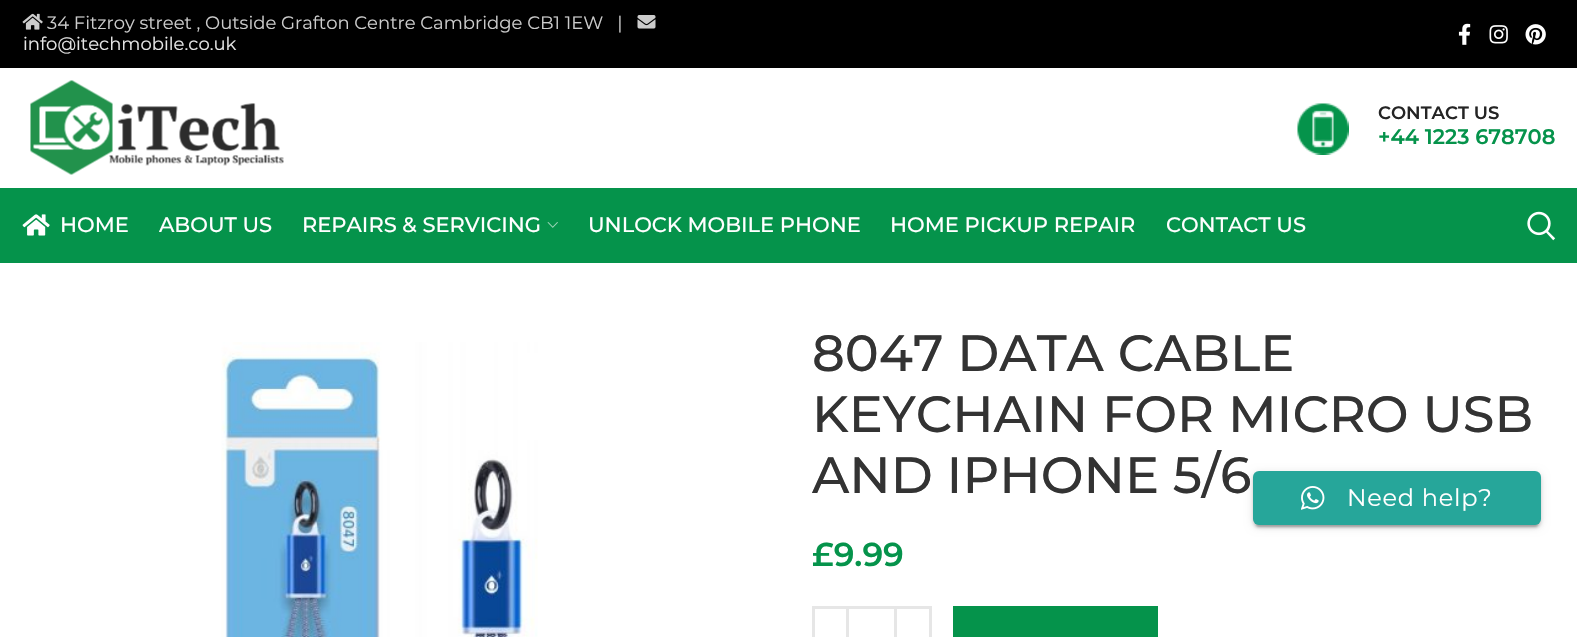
void draw(SkCanvas* canvas) {
	SkPaint paint;
	paint.setAntiAlias(true);
	auto spacedText = [&](const char* s, float x, float y, const SkFont& font, const SkPaint& ink, float letter, float word) {
		std::vector<SkGlyphID> glyphs(font.countText(s, strlen(s), SkTextEncoding::kUTF8));
		std::vector<float> xs(glyphs.size());
		font.textToGlyphs(s, strlen(s), SkTextEncoding::kUTF8, glyphs);
		font.getXPos(glyphs, xs, x);
		float extra = 0;
		for (size_t i = 0; i < glyphs.size(); i++) {
			xs[i] += extra;
			extra += letter + word * (glyphs[i] == font.unicharToGlyph(' '));
		}
		canvas->drawTextBlob(SkTextBlob::MakeFromPosHGlyphs(glyphs, xs, y, font), 0, 0, ink);
	};
	canvas->clear(0xffffffff);
	paint.setColor(0xff000000);
	canvas->drawRect(SkRect::MakeXYWH(0, 0, 1577, 68), paint);
	canvas->drawImageRect(SkImages::DeferredFromEncodedData(SkData::MakeFromFileName("img1.png")), SkRect::MakeXYWH(22, 13, 21, 17), SkSamplingOptions());
	SkFont f1(fontMgr->matchFamilyStyle("Montserrat", SkFontStyle::Normal()), 18);
	f1.setSubpixel(true);
	paint.setColor(0xffcccccc);
	canvas->drawString("34 Fitzroy street , Outside Grafton Centre Cambridge CB1 1EW   |", 47, 29, f1, paint);
	canvas->drawImageRect(SkImages::DeferredFromEncodedData(SkData::MakeFromFileName("img2.png")), SkRect::MakeXYWH(637, 15, 19, 14), SkSamplingOptions());
	paint.setColor(0xffe6e6e6);
	canvas->drawString("info@itechmobile.co.uk", 23, 50, f1, paint);
	canvas->drawImageRect(SkImages::DeferredFromEncodedData(SkData::MakeFromFileName("img3.png")), SkRect::MakeXYWH(1458, 23, 13, 22), SkSamplingOptions());
	canvas->drawImageRect(SkImages::DeferredFromEncodedData(SkData::MakeFromFileName("img4.png")), SkRect::MakeXYWH(1489, 25, 19, 19), SkSamplingOptions());
	canvas->drawImageRect(SkImages::DeferredFromEncodedData(SkData::MakeFromFileName("img5.png")), SkRect::MakeXYWH(1525, 24, 21, 21), SkSamplingOptions());
	canvas->drawImageRect(SkImages::DeferredFromEncodedData(SkData::MakeFromFileName("img6.png")), SkRect::MakeXYWH(30, 80, 254, 95), SkSamplingOptions());
	canvas->drawImageRect(SkImages::DeferredFromEncodedData(SkData::MakeFromFileName("img7.png")), SkRect::MakeXYWH(1297, 103, 52, 52), SkSamplingOptions());
	SkFont f2(fontMgr->matchFamilyStyle("Montserrat", SkFontStyle(600, SkFontStyle::kNormal_Width, SkFontStyle::kUpright_Slant)), 18);
	f2.setSubpixel(true);
	paint.setColor(0xff242424);
	canvas->drawString("CONTACT US", 1378, 119, f2, paint);
	SkFont f3(fontMgr->matchFamilyStyle("Montserrat", SkFontStyle(600, SkFontStyle::kNormal_Width, SkFontStyle::kUpright_Slant)), 21);
	f3.setSubpixel(true);
	paint.setColor(0xff05934b);
	canvas->drawString("+44 1223 678708", 1378, 144, f3, paint);
	canvas->drawRect(SkRect::MakeXYWH(0, 188, 1577, 75), paint);
	canvas->drawImageRect(SkImages::DeferredFromEncodedData(SkData::MakeFromFileName("img8.png")), SkRect::MakeXYWH(22, 214, 28, 22), SkSamplingOptions());
	SkFont f4(fontMgr->matchFamilyStyle("Montserrat", SkFontStyle(500, SkFontStyle::kNormal_Width, SkFontStyle::kUpright_Slant)), 21);
	f4.setSubpixel(true);
	paint.setColor(0xffffffff);
	canvas->drawString("HOME", 60, 232, f4, paint);
	canvas->drawString("ABOUT US", 159, 232, f4, paint);
	canvas->drawString("REPAIRS & SERVICING", 302, 232, f4, paint);
	canvas->drawImageRect(SkImages::DeferredFromEncodedData(SkData::MakeFromFileName("img9.png")), SkRect::MakeXYWH(547, 222, 11, 6), SkSamplingOptions());
	canvas->drawString("UNLOCK MOBILE PHONE", 588, 232, f4, paint);
	canvas->drawString("HOME PICKUP REPAIR", 890, 232, f4, paint);
	canvas->drawString("CONTACT US", 1166, 232, f4, paint);
	canvas->drawImageRect(SkImages::DeferredFromEncodedData(SkData::MakeFromFileName("img10.png")), SkRect::MakeXYWH(1527, 211, 29, 30), SkSamplingOptions());
	canvas->drawImageRect(SkImages::DeferredFromEncodedData(SkData::MakeFromFileName("img11.png")), SkRect::MakeXYWH(221, 342, 317, 295), SkSamplingOptions());
	SkFont f5(fontMgr->matchFamilyStyle("Montserrat", SkFontStyle(500, SkFontStyle::kNormal_Width, SkFontStyle::kUpright_Slant)), 51);
	f5.setSubpixel(true);
	paint.setColor(0xff333333);
	canvas->drawString("8047 DATA CABLE", 812, 371, f5, paint);
	canvas->drawString("KEYCHAIN FOR MICRO USB", 812, 432, f5, paint);
	canvas->drawString("AND IPHONE 5/6", 812, 493, f5, paint);
	SkFont f6(fontMgr->matchFamilyStyle("Montserrat", SkFontStyle(600, SkFontStyle::kNormal_Width, SkFontStyle::kUpright_Slant)), 33);
	f6.setSubpixel(true);
	paint.setColor(0xff05934b);
	canvas->drawString("£9.99", 812, 566, f6, paint);
	paint.setStroke(true);
	paint.setStrokeWidth(3);
	paint.setColor(0xffe6e6e6);
	canvas->drawRect(SkRect::MakeXYWH(813.5, 607.5, 34, 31), paint);
	paint.setStroke(false);
	canvas->drawRect(SkRect::MakeXYWH(849, 606, 45, 3), paint);
	paint.setStroke(true);
	canvas->drawRect(SkRect::MakeXYWH(895.5, 607.5, 35, 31), paint);
	paint.setStroke(false);
	paint.setColor(0xff05934b);
	canvas->drawRect(SkRect::MakeXYWH(953, 606, 205, 31), paint);
	paint.setColor(0x33000000);
	paint.setMaskFilter(SkMaskFilter::MakeBlur(kNormal_SkBlurStyle, 1));
	canvas->drawRoundRect(SkRect::MakeXYWH(1256, 479, 282, 48), 3, 3, paint);
	paint.setMaskFilter(nullptr);
	paint.setColor(0x1f000000);
	paint.setMaskFilter(SkMaskFilter::MakeBlur(kNormal_SkBlurStyle, 4));
	canvas->drawRoundRect(SkRect::MakeXYWH(1253, 473, 288, 54), 6, 6, paint);
	paint.setMaskFilter(nullptr);
	paint.setColor(0x24000000);
	paint.setMaskFilter(SkMaskFilter::MakeBlur(kNormal_SkBlurStyle, 1.5));
	canvas->drawRoundRect(SkRect::MakeXYWH(1253, 474, 288, 54), 6, 6, paint);
	paint.setMaskFilter(nullptr);
	paint.setColor(0xff26a69a);
	canvas->drawRoundRect(SkRect::MakeXYWH(1253, 471, 288, 54), 6, 6, paint);
	canvas->drawImageRect(SkImages::DeferredFromEncodedData(SkData::MakeFromFileName("img12.png")), SkRect::MakeXYWH(1301, 486, 24, 24), SkSamplingOptions());
	SkFont f7(fontMgr->matchFamilyStyle("Montserrat", SkFontStyle::Normal()), 24);
	f7.setSubpixel(true);
	paint.setColor(0xffffffff);
	spacedText("Need help?", 1347, 506, f7, paint, 0.75, 0);
}
